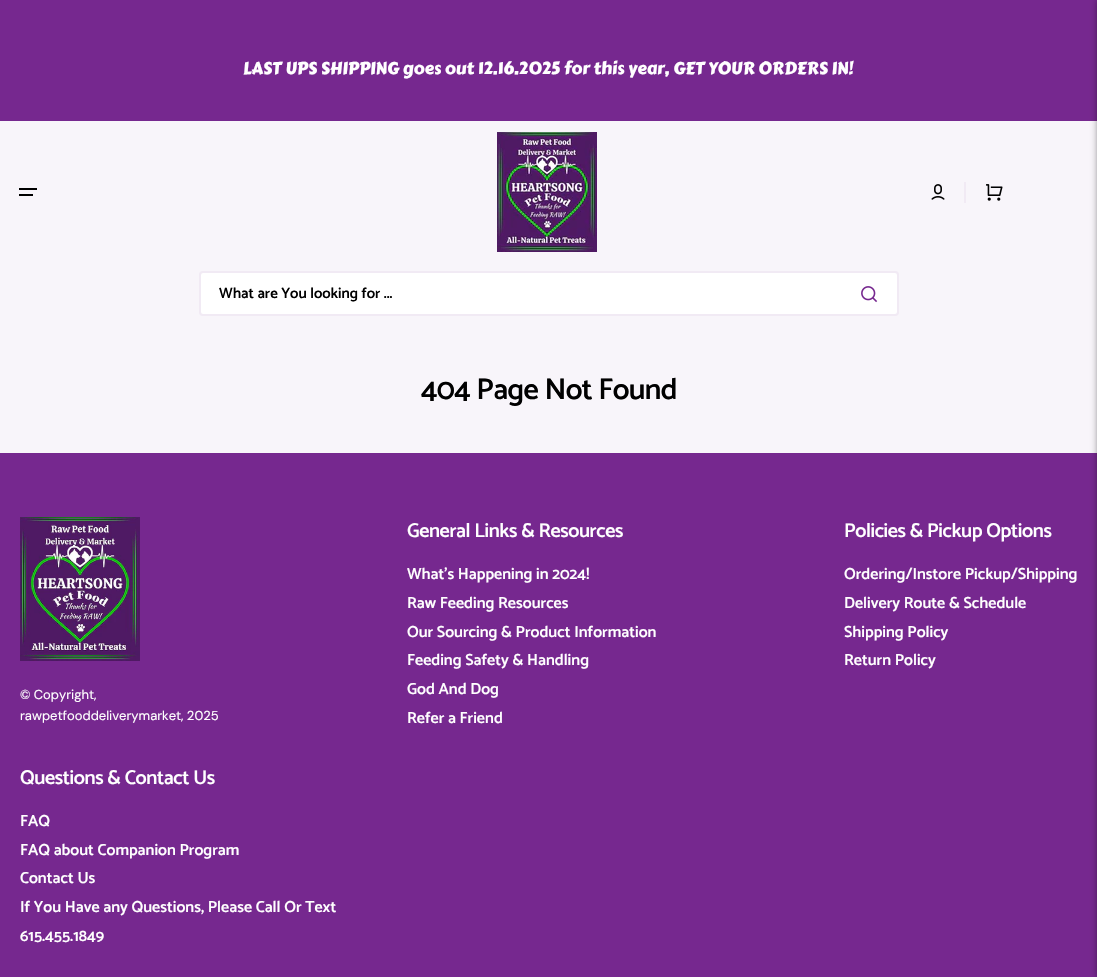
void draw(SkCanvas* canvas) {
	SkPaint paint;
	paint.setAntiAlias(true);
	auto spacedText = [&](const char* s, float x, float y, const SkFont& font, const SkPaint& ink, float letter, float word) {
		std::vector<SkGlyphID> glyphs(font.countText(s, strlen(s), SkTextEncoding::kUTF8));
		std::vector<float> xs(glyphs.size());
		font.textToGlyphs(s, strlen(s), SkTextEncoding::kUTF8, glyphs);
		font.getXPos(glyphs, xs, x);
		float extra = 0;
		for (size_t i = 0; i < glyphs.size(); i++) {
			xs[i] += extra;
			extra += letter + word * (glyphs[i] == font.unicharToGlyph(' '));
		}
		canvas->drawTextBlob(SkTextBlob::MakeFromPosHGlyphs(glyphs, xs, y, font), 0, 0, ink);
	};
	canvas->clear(0xfff8f5fa);
	paint.setColor(0xff76288f);
	canvas->drawRect(SkRect::MakeXYWH(0, 0, 1097, 121), paint);
	SkFont f1(fontMgr->matchFamilyStyle("Carter One", SkFontStyle::Normal()), 17);
	f1.setSubpixel(true);
	paint.setColor(0xffffffff);
	canvas->drawString("LAST UPS SHIPPING goes out 12.16.2025 for this year, GET YOUR ORDERS IN!", 243, 74, f1, paint);
	paint.setColor(0xff76288f);
	canvas->drawRect(SkRect::MakeXYWH(0, 453, 1097, 524), paint);
	paint.setColor(0x80000000);
	paint.setMaskFilter(SkMaskFilter::MakeBlur(kNormal_SkBlurStyle, 3.5));
	canvas->drawRect(SkRect::MakeXYWH(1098, 0, 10, 977), paint);
	paint.setMaskFilter(nullptr);
	paint.setColor(0xff000000);
	canvas->drawRect(SkRect::MakeXYWH(19, 188, 18, 2), paint);
	canvas->drawRect(SkRect::MakeXYWH(19, 194, 14, 2), paint);
	canvas->drawImageRect(SkImages::DeferredFromEncodedData(SkData::MakeFromFileName("img1.png")), SkRect::MakeXYWH(497, 132, 100, 120), SkSamplingOptions());
	canvas->drawImageRect(SkImages::DeferredFromEncodedData(SkData::MakeFromFileName("img2.png")), SkRect::MakeXYWH(931, 184, 14, 16), SkSamplingOptions());
	paint.setColor(0xfff1eaf4);
	canvas->drawRect(SkRect::MakeXYWH(964, 182, 2, 21), paint);
	canvas->drawImageRect(SkImages::DeferredFromEncodedData(SkData::MakeFromFileName("img3.png")), SkRect::MakeXYWH(986, 184, 17, 17), SkSamplingOptions());
	paint.setColor(0xffffffff);
	canvas->drawRoundRect(SkRect::MakeXYWH(200, 272, 698, 43), 3, 3, paint);
	paint.setStroke(true);
	paint.setStrokeWidth(2);
	paint.setColor(0xfff1eaf4);
	canvas->drawRoundRect(SkRect::MakeXYWH(200, 272, 698, 43), 3, 3, paint);
	SkFont f2(fontMgr->matchFamilyStyle("Catamaran", SkFontStyle(600, SkFontStyle::kNormal_Width, SkFontStyle::kUpright_Slant)), 15);
	f2.setSubpixel(true);
	paint.setStroke(false);
	paint.setColor(0xff000000);
	canvas->drawString("What are You looking for ...", 219, 298, f2, paint);
	canvas->drawImageRect(SkImages::DeferredFromEncodedData(SkData::MakeFromFileName("img4.png")), SkRect::MakeXYWH(861, 286, 17, 17), SkSamplingOptions());
	SkFont f3(fontMgr->matchFamilyStyle("Catamaran", SkFontStyle(600, SkFontStyle::kNormal_Width, SkFontStyle::kUpright_Slant)), 30);
	f3.setSubpixel(true);
	spacedText("404 Page Not Found", 421, 399, f3, paint, -0.6, 0);
	SkFont f4(fontMgr->matchFamilyStyle("Catamaran", SkFontStyle(600, SkFontStyle::kNormal_Width, SkFontStyle::kUpright_Slant)), 20);
	f4.setSubpixel(true);
	paint.setColor(0xffffffff);
	spacedText("General Links & Resources", 407, 537, f4, paint, -0.4, 0);
	SkFont f5(fontMgr->matchFamilyStyle("Catamaran", SkFontStyle(600, SkFontStyle::kNormal_Width, SkFontStyle::kUpright_Slant)), 16);
	f5.setSubpixel(true);
	canvas->drawString("What's Happening in 2024!", 407, 579, f5, paint);
	canvas->drawString("Raw Feeding Resources", 407, 608, f5, paint);
	canvas->drawString("Our Sourcing & Product Information", 407, 637, f5, paint);
	canvas->drawString("Feeding Safety & Handling", 407, 665, f5, paint);
	canvas->drawString("God And Dog", 407, 694, f5, paint);
	canvas->drawString("Refer a Friend", 407, 723, f5, paint);
	spacedText("Policies & Pickup Options", 844, 537, f4, paint, -0.4, 0);
	canvas->drawString("Ordering/Instore Pickup/Shipping", 844, 579, f5, paint);
	canvas->drawString("Delivery Route & Schedule", 844, 608, f5, paint);
	canvas->drawString("Shipping Policy", 844, 637, f5, paint);
	canvas->drawString("Return Policy", 844, 665, f5, paint);
	canvas->drawImageRect(SkImages::DeferredFromEncodedData(SkData::MakeFromFileName("img5.png")), SkRect::MakeXYWH(20, 517, 120, 144), SkSamplingOptions());
	SkFont f6(fontMgr->matchFamilyStyle("DM Sans", SkFontStyle::Normal()), 13);
	f6.setSubpixel(true);
	canvas->drawString("© Copyright,", 20, 699, f6, paint);
	canvas->drawString("rawpetfooddeliverymarket", 20, 720, f6, paint);
	canvas->drawString(", 2025", 181, 720, f6, paint);
	spacedText("Questions & Contact Us", 20, 784, f4, paint, -0.4, 0);
	canvas->drawString("FAQ", 20, 826, f5, paint);
	canvas->drawString("FAQ about Companion Program", 20, 855, f5, paint);
	canvas->drawString("Contact Us", 20, 883, f5, paint);
	canvas->drawString("If You Have any Questions, Please Call Or Text", 20, 912, f5, paint);
	canvas->drawString("615.455.1849", 20, 941, f5, paint);
}
